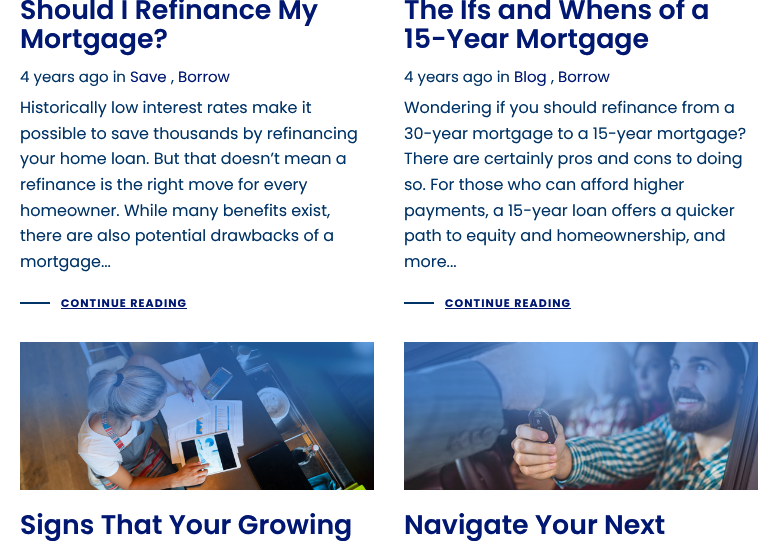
void draw(SkCanvas* canvas) {
	SkPaint paint;
	paint.setAntiAlias(true);
	auto spacedText = [&](const char* s, float x, float y, const SkFont& font, const SkPaint& ink, float letter, float word) {
		std::vector<SkGlyphID> glyphs(font.countText(s, strlen(s), SkTextEncoding::kUTF8));
		std::vector<float> xs(glyphs.size());
		font.textToGlyphs(s, strlen(s), SkTextEncoding::kUTF8, glyphs);
		font.getXPos(glyphs, xs, x);
		float extra = 0;
		for (size_t i = 0; i < glyphs.size(); i++) {
			xs[i] += extra;
			extra += letter + word * (glyphs[i] == font.unicharToGlyph(' '));
		}
		canvas->drawTextBlob(SkTextBlob::MakeFromPosHGlyphs(glyphs, xs, y, font), 0, 0, ink);
	};
	canvas->clear(0xffffffff);
	SkFont f1(fontMgr->matchFamilyStyle("Poppins", SkFontStyle(600, SkFontStyle::kNormal_Width, SkFontStyle::kUpright_Slant)), 26.8);
	f1.setSubpixel(true);
	paint.setColor(0xff001871);
	canvas->drawString("Should I Refinance My", 20, 19, f1, paint);
	canvas->drawString("Mortgage?", 20, 48, f1, paint);
	SkFont f2(fontMgr->matchFamilyStyle("Poppins", SkFontStyle::Normal()), 15);
	f2.setSubpixel(true);
	paint.setColor(0xff003366);
	canvas->drawString("4 years ago in", 20, 82, f2, paint);
	paint.setColor(0xff001871);
	canvas->drawString("Save", 130, 82, f2, paint);
	paint.setColor(0xff003366);
	canvas->drawString(",", 171, 82, f2, paint);
	paint.setColor(0xff001871);
	canvas->drawString("Borrow", 178, 82, f2, paint);
	SkFont f3(fontMgr->matchFamilyStyle("Poppins", SkFontStyle::Normal()), 16);
	f3.setSubpixel(true);
	paint.setColor(0xff003366);
	canvas->drawString("Historically low interest rates make it", 20, 113, f3, paint);
	canvas->drawString("possible to save thousands by refinancing", 20, 139, f3, paint);
	canvas->drawString("your home loan. But that doesn’t mean a", 20, 164, f3, paint);
	canvas->drawString("refinance is the right move for every", 20, 190, f3, paint);
	canvas->drawString("homeowner. While many benefits exist,", 20, 216, f3, paint);
	canvas->drawString("there are also potential drawbacks of a", 20, 241, f3, paint);
	canvas->drawString("mortgage...", 20, 267, f3, paint);
	canvas->drawRect(SkRect::MakeXYWH(20, 302, 30, 2), paint);
	SkFont f4(fontMgr->matchFamilyStyle("Poppins", SkFontStyle::Bold()), 11);
	f4.setSubpixel(true);
	paint.setColor(0xff001871);
	spacedText("CONTINUE READING", 61, 307, f4, paint, 1.1, 0);
	canvas->drawRect(SkRect::MakeXYWH(61, 308, 126, 1), paint);
	canvas->drawString("The Ifs and Whens of a", 404, 19, f1, paint);
	canvas->drawString("15-Year Mortgage", 404, 48, f1, paint);
	paint.setColor(0xff003366);
	canvas->drawString("4 years ago in", 404, 82, f2, paint);
	paint.setColor(0xff001871);
	canvas->drawString("Blog", 514, 82, f2, paint);
	paint.setColor(0xff003366);
	canvas->drawString(",", 551, 82, f2, paint);
	paint.setColor(0xff001871);
	canvas->drawString("Borrow", 558, 82, f2, paint);
	paint.setColor(0xff003366);
	canvas->drawString("Wondering if you should refinance from a", 404, 113, f3, paint);
	canvas->drawString("30-year mortgage to a 15-year mortgage?", 404, 139, f3, paint);
	canvas->drawString("There are certainly pros and cons to doing", 404, 164, f3, paint);
	canvas->drawString("so. For those who can afford higher", 404, 190, f3, paint);
	canvas->drawString("payments, a 15-year loan offers a quicker", 404, 216, f3, paint);
	canvas->drawString("path to equity and homeownership, and", 404, 241, f3, paint);
	canvas->drawString("more...", 404, 267, f3, paint);
	canvas->drawRect(SkRect::MakeXYWH(404, 302, 30, 2), paint);
	paint.setColor(0xff001871);
	spacedText("CONTINUE READING", 445, 307, f4, paint, 1.1, 0);
	canvas->drawRect(SkRect::MakeXYWH(445, 308, 126, 1), paint);
	canvas->drawImageRect(SkImages::DeferredFromEncodedData(SkData::MakeFromFileName("img1.png")), SkRect::MakeXYWH(20, 342, 354, 148), SkSamplingOptions());
	canvas->drawString("Signs That Your Growing", 20, 534, f1, paint);
	canvas->drawImageRect(SkImages::DeferredFromEncodedData(SkData::MakeFromFileName("img2.png")), SkRect::MakeXYWH(404, 342, 354, 148), SkSamplingOptions());
	canvas->drawString("Navigate Your Next", 404, 534, f1, paint);
}
